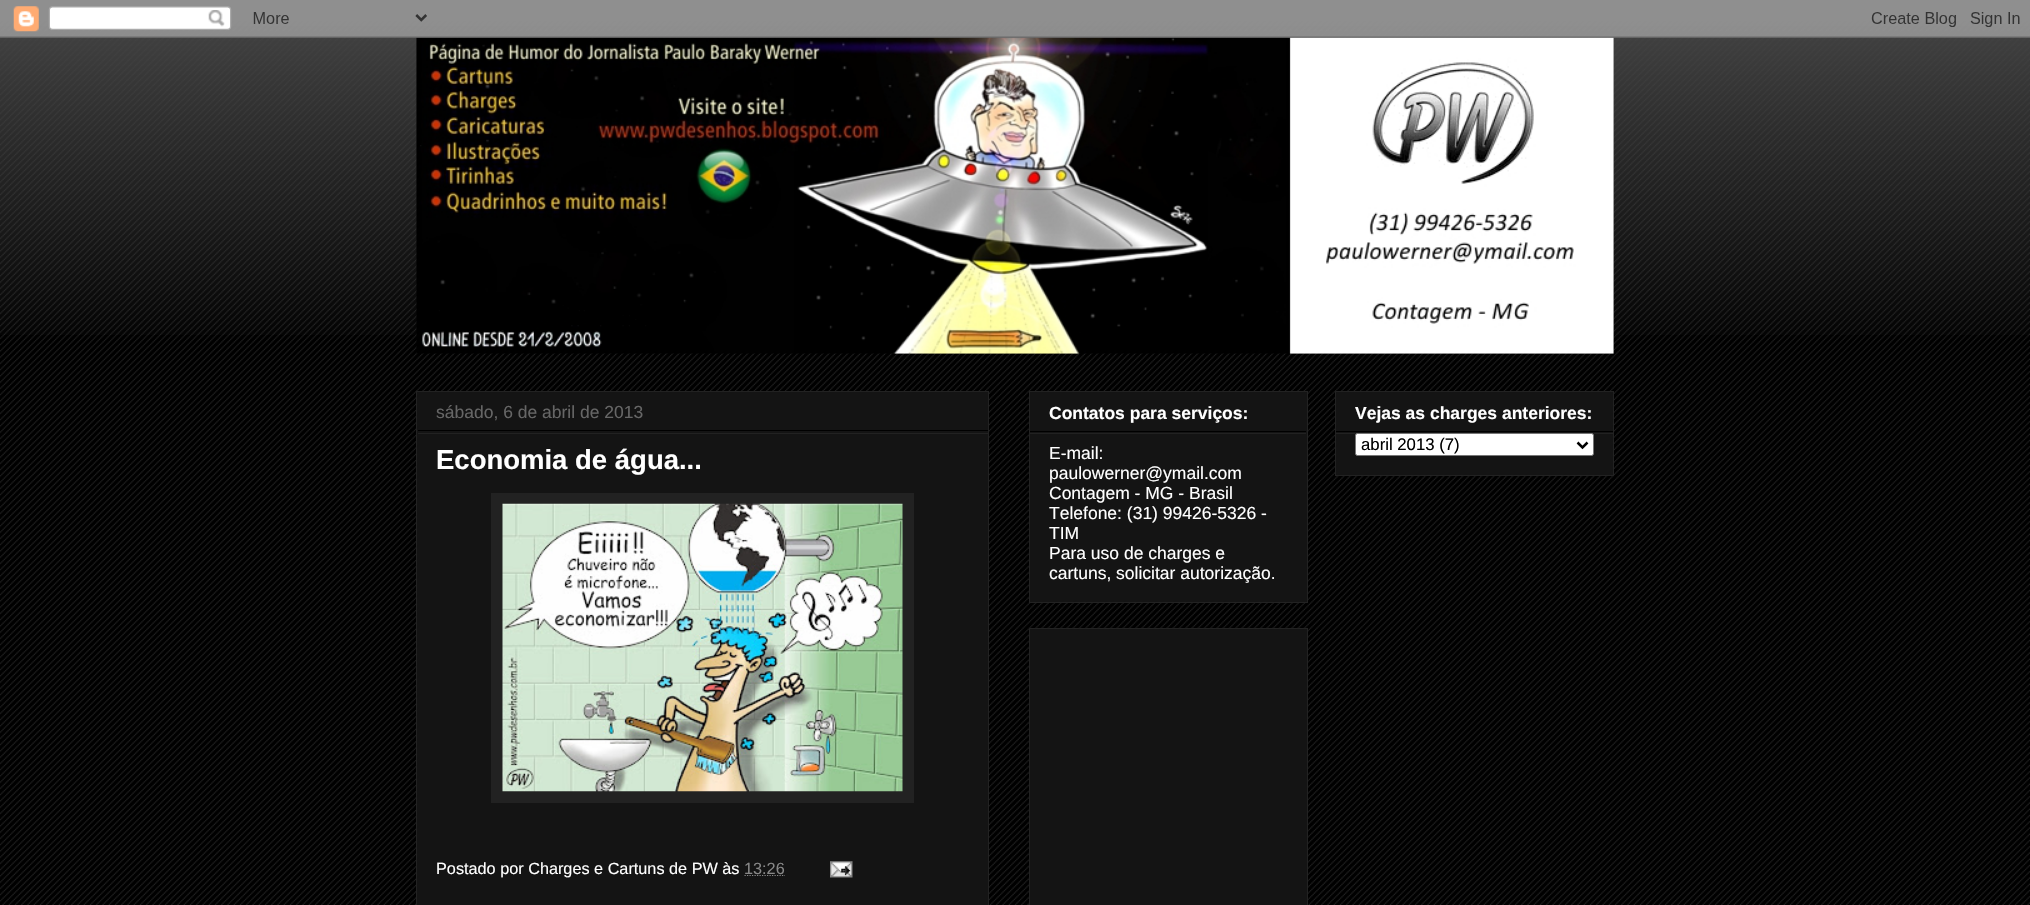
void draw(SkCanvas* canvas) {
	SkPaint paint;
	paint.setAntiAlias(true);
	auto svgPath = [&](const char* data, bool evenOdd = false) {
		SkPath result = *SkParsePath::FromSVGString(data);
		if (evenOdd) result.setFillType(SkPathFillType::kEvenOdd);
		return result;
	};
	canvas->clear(0xff000000);
	canvas->drawImageRect(SkImages::DeferredFromEncodedData(SkData::MakeFromFileName("img1.png")), SkRect::MakeXYWH(0, 16, 2030, 889), SkSamplingOptions());
	canvas->drawImageRect(SkImages::DeferredFromEncodedData(SkData::MakeFromFileName("img2.png")), SkRect::MakeXYWH(0, 0, 2030, 335), SkSamplingOptions());
	canvas->drawImageRect(SkImages::DeferredFromEncodedData(SkData::MakeFromFileName("img4.png")), SkRect::MakeXYWH(416, 37, 1198, 317), SkSamplingOptions());
	canvas->drawImageRect(SkImages::DeferredFromEncodedData(SkData::MakeFromFileName("img3.png")), SkRect::MakeXYWH(0, 0, 2030, 38), SkSamplingOptions());
	paint.setColor(0xff141414);
	canvas->drawRect(SkRect::MakeXYWH(416.5, 391.5, 572, 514), paint);
	paint.setStroke(true);
	paint.setStrokeWidth(1);
	paint.setColor(0xff222222);
	canvas->drawRect(SkRect::MakeXYWH(416.5, 391.5, 572, 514), paint);
	paint.setStroke(false);
	paint.setColor(0xff000000);
	canvas->drawRect(SkRect::MakeXYWH(418, 430, 570, 1), paint);
	SkFont f1(fontMgr->matchFamilyStyle("Liberation Sans", SkFontStyle::Normal()), 17.5);
	f1.setSubpixel(true);
	paint.setColor(0xff666666);
	canvas->drawString("sábado, 6 de abril de 2013", 436, 418, f1, paint);
	paint.setColor(0xff222222);
	canvas->drawRect(SkRect::MakeXYWH(418, 433, 570, 1), paint);
	SkFont f2(fontMgr->matchFamilyStyle("Liberation Sans", SkFontStyle::Bold()), 27.5);
	f2.setSubpixel(true);
	paint.setColor(0xffffffff);
	canvas->drawString("Economia de água...", 436, 469, f2, paint);
	paint.setColor(0xff222222);
	canvas->drawRect(SkRect::MakeXYWH(491, 493, 423, 310), paint);
	canvas->drawImageRect(SkImages::DeferredFromEncodedData(SkData::MakeFromFileName("img5.png")), SkRect::MakeXYWH(502, 503, 401, 289), SkSamplingOptions());
	SkFont f3(fontMgr->matchFamilyStyle("Liberation Sans", SkFontStyle::Normal()), 16.25);
	f3.setSubpixel(true);
	paint.setColor(0xffffffff);
	canvas->drawString("Postado por Charges e Cartuns de PW às", 436, 874, f3, paint);
	paint.setStroke(true);
	paint.setStrokeWidth(1.2);
	paint.setColor(0xff888888);
	paint.setPathEffect(SkDashPathEffect::Make({{1.25f, 1.25f}}, 0));
	canvas->drawPath(svgPath("M744.5 875.5H785"), paint);
	paint.setPathEffect(nullptr);
	paint.setStroke(false);
	canvas->drawString("13:26", 744, 874, f3, paint);
	canvas->drawImageRect(SkImages::DeferredFromEncodedData(SkData::MakeFromFileName("img6.png")), SkRect::MakeXYWH(830, 861, 23, 17), SkSamplingOptions());
	paint.setColor(0xff141414);
	canvas->drawRect(SkRect::MakeXYWH(1029.5, 391.5, 278, 211), paint);
	paint.setStroke(true);
	paint.setStrokeWidth(1);
	paint.setColor(0xff222222);
	canvas->drawRect(SkRect::MakeXYWH(1029.5, 391.5, 278, 211), paint);
	paint.setStroke(false);
	paint.setColor(0xff000000);
	canvas->drawRect(SkRect::MakeXYWH(1030, 431, 276, 1), paint);
	SkFont f4(fontMgr->matchFamilyStyle("Liberation Sans", SkFontStyle::Bold()), 17.5);
	f4.setSubpixel(true);
	paint.setColor(0xffffffff);
	canvas->drawString("Contatos para serviços:", 1049, 419, f4, paint);
	paint.setColor(0xff222222);
	canvas->drawRect(SkRect::MakeXYWH(1030, 433, 276, 1), paint);
	paint.setColor(0xffffffff);
	canvas->drawString("E-mail:", 1049, 459, f1, paint);
	canvas->drawString("paulowerner@ymail.com", 1049, 479, f1, paint);
	canvas->drawString("Contagem - MG - Brasil", 1049, 499, f1, paint);
	canvas->drawString("Telefone: (31) 99426-5326 -", 1049, 519, f1, paint);
	canvas->drawString("TIM", 1049, 539, f1, paint);
	canvas->drawString("Para uso de charges e", 1049, 559, f1, paint);
	canvas->drawString("cartuns, solicitar autorização.", 1049, 579, f1, paint);
	paint.setColor(0xff141414);
	canvas->drawRect(SkRect::MakeXYWH(1029.5, 628.5, 278, 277), paint);
	paint.setStroke(true);
	paint.setColor(0xff222222);
	canvas->drawRect(SkRect::MakeXYWH(1029.5, 628.5, 278, 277), paint);
	paint.setStroke(false);
	paint.setColor(0xff141414);
	canvas->drawRect(SkRect::MakeXYWH(1335.5, 391.5, 278, 84), paint);
	paint.setStroke(true);
	paint.setColor(0xff222222);
	canvas->drawRect(SkRect::MakeXYWH(1335.5, 391.5, 278, 84), paint);
	paint.setStroke(false);
	paint.setColor(0xff000000);
	canvas->drawRect(SkRect::MakeXYWH(1336, 431, 277, 1), paint);
	paint.setColor(0xffffffff);
	canvas->drawString("Vejas as charges anteriores:", 1355, 419, f4, paint);
	paint.setColor(0xff222222);
	canvas->drawRect(SkRect::MakeXYWH(1336, 433, 277, 1), paint);
	paint.setColor(0xffffffff);
	canvas->drawRoundRect(SkRect::MakeXYWH(1355.5, 433.5, 238, 22), 2, 2, paint);
	paint.setStroke(true);
	paint.setColor(0xff767676);
	canvas->drawRoundRect(SkRect::MakeXYWH(1355.5, 433.5, 238, 22), 2, 2, paint);
	paint.setStrokeWidth(2.5);
	paint.setColor(0xff000000);
	canvas->drawPath(svgPath("M1577.5 442.5L1582.5 447.5L1587.5 442.5"), paint);
	SkFont f5(fontMgr->matchFamilyStyle("Liberation Sans", SkFontStyle::Normal()), 16.75);
	f5.setSubpixel(true);
	paint.setStroke(false);
	canvas->drawString("abril 2013 (7)", 1361, 450, f5, paint);
}
